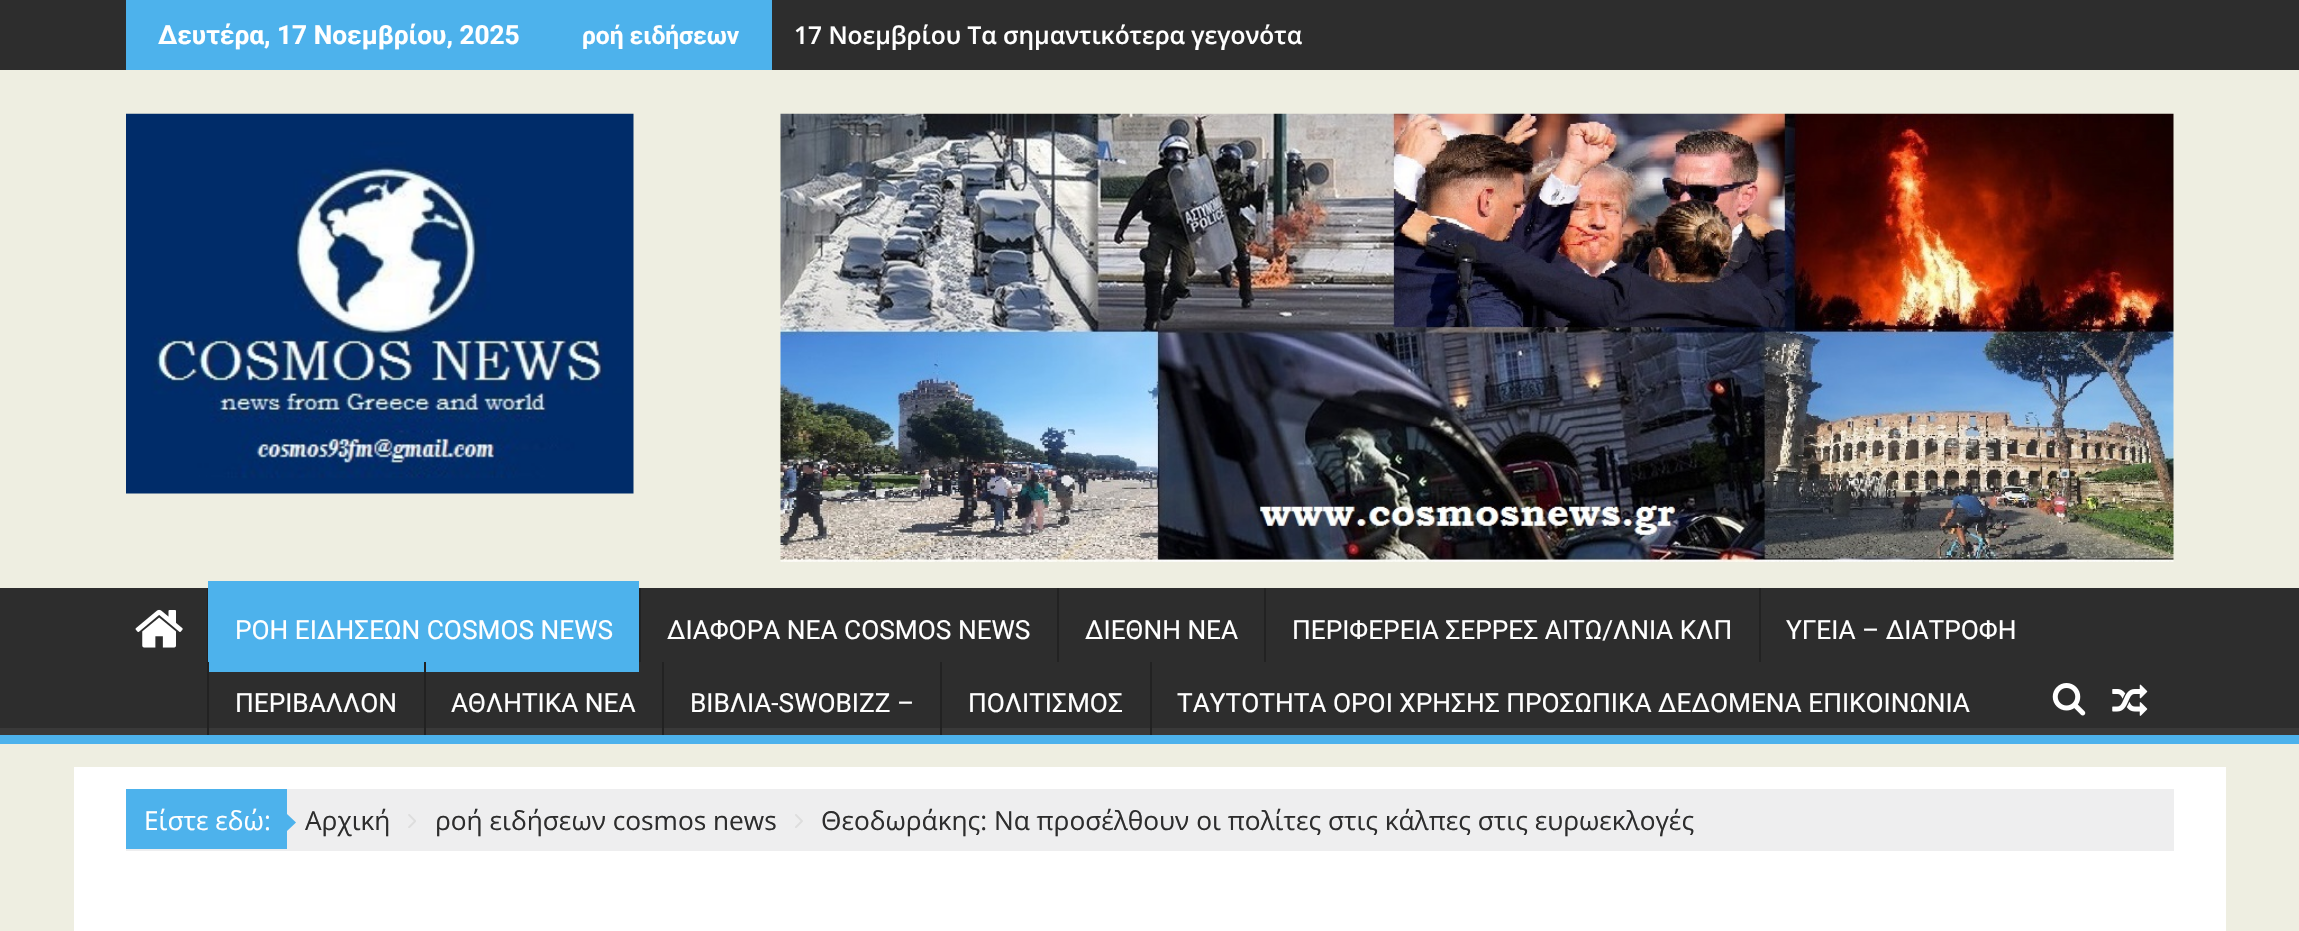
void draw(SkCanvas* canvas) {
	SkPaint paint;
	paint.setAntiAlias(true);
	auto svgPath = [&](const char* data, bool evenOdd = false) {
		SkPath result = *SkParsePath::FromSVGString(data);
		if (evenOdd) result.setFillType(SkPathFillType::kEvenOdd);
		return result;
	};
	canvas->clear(0xffeeeee1);
	paint.setColor(0xff2d2d2d);
	canvas->drawRect(SkRect::MakeXYWH(0, 0, 2299, 70), paint);
	paint.setColor(0xff4db2ec);
	canvas->drawRect(SkRect::MakeXYWH(126, 0, 646, 70), paint);
	SkFont f1(fontMgr->matchFamilyStyle("Roboto", SkFontStyle::Bold()), 26.25);
	f1.setSubpixel(true);
	paint.setColor(0xffffffff);
	canvas->drawString("Δευτέρα, 17 Νοεμβρίου, 2025", 158, 44, f1, paint);
	SkFont f2(fontMgr->matchFamilyStyle("Roboto", SkFontStyle::Bold()), 24.5);
	f2.setSubpixel(true);
	canvas->drawString("ροή ειδήσεων", 582, 44, f2, paint);
	SkFont f3(fontMgr->matchFamilyStyle("Open Sans", SkFontStyle(600, SkFontStyle::kNormal_Width, SkFontStyle::kUpright_Slant)), 24.5);
	f3.setSubpixel(true);
	canvas->drawString("17 Νοεμβρίου Τα σημαντικότερα γεγονότα", 794, 44, f3, paint);
	canvas->drawImageRect(SkImages::DeferredFromEncodedData(SkData::MakeFromFileName("img1.png")), SkRect::MakeXYWH(126, 113, 508, 381), SkSamplingOptions());
	canvas->drawImageRect(SkImages::DeferredFromEncodedData(SkData::MakeFromFileName("img2.png")), SkRect::MakeXYWH(780, 113, 1394, 449), SkSamplingOptions());
	paint.setColor(0xff2d2d2d);
	canvas->drawRect(SkRect::MakeXYWH(0, 588, 2299, 140), paint);
	canvas->save();
	canvas->clipRect(SkRect::MakeXYWH(0, 588, 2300, 147));
	paint.setColor(0xff393939);
	canvas->drawPath(svgPath("M-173 415H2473V908H-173ZM-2 578H2298C2299 578 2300 578 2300 579V726C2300 727 2299 728 2298 728H-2C-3 728-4 727-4 726V579C-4 578-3 578-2 578Z", true), paint);
	canvas->restore();
	paint.setColor(0xff4db2ec);
	canvas->drawRect(SkRect::MakeXYWH(0, 735, 2299, 9), paint);
	canvas->drawImageRect(SkImages::DeferredFromEncodedData(SkData::MakeFromFileName("img3.png")), SkRect::MakeXYWH(135, 609, 48, 39), SkSamplingOptions());
	paint.setColor(0xff222222);
	canvas->drawRect(SkRect::MakeXYWH(207, 588, 1, 74), paint);
	paint.setColor(0xff4db2ec);
	canvas->drawRect(SkRect::MakeXYWH(208, 581, 431, 91), paint);
	SkFont f4(fontMgr->matchFamilyStyle("Roboto", SkFontStyle::Normal()), 26.25);
	f4.setSubpixel(true);
	paint.setColor(0xffffffff);
	canvas->drawString("ΡΟΗ ΕΙΔΗΣΕΩΝ COSMOS NEWS", 235, 639, f4, paint);
	paint.setColor(0xff222222);
	canvas->drawRect(SkRect::MakeXYWH(639, 588, 2, 74), paint);
	paint.setColor(0xffffffff);
	canvas->drawString("ΔΙΑΦΟΡΑ ΝΕΑ COSMOS NEWS", 667, 639, f4, paint);
	paint.setColor(0xff222222);
	canvas->drawRect(SkRect::MakeXYWH(1057, 588, 2, 74), paint);
	paint.setColor(0xffffffff);
	canvas->drawString("ΔΙΕΘΝΗ ΝΕΑ", 1085, 639, f4, paint);
	paint.setColor(0xff222222);
	canvas->drawRect(SkRect::MakeXYWH(1264, 588, 2, 74), paint);
	paint.setColor(0xffffffff);
	canvas->drawString("ΠΕΡΙΦΕΡΕΙΑ ΣΕΡΡΕΣ ΑΙΤΩ/ΛΝΙΑ ΚΛΠ", 1292, 639, f4, paint);
	paint.setColor(0xff222222);
	canvas->drawRect(SkRect::MakeXYWH(1759, 588, 2, 74), paint);
	paint.setColor(0xffffffff);
	canvas->drawString("ΥΓΕΙΑ – ΔΙΑΤΡΟΦΗ", 1786, 639, f4, paint);
	paint.setColor(0xff222222);
	canvas->drawRect(SkRect::MakeXYWH(207, 662, 2, 73), paint);
	paint.setColor(0xffffffff);
	canvas->drawString("ΠΕΡΙΒΑΛΛΟΝ", 235, 712, f4, paint);
	paint.setColor(0xff222222);
	canvas->drawRect(SkRect::MakeXYWH(424, 662, 2, 73), paint);
	paint.setColor(0xffffffff);
	canvas->drawString("ΑΘΛΗΤΙΚΑ ΝΕΑ", 451, 712, f4, paint);
	paint.setColor(0xff222222);
	canvas->drawRect(SkRect::MakeXYWH(662, 662, 2, 73), paint);
	paint.setColor(0xffffffff);
	canvas->drawString("ΒΙΒΛΙΑ-SWOBIZZ –", 690, 712, f4, paint);
	paint.setColor(0xff222222);
	canvas->drawRect(SkRect::MakeXYWH(940, 662, 2, 73), paint);
	paint.setColor(0xffffffff);
	canvas->drawString("ΠΟΛΙΤΙΣΜΟΣ", 968, 712, f4, paint);
	paint.setColor(0xff222222);
	canvas->drawRect(SkRect::MakeXYWH(1150, 662, 2, 73), paint);
	paint.setColor(0xffffffff);
	canvas->drawString("TAYTOTHTA ΟΡΟΙ ΧΡΗΣΗΣ ΠΡΟΣΩΠΙΚΑ ΔΕΔΟΜΕΝΑ ΕΠΙΚΟΙΝΩΝΙΑ", 1177, 712, f4, paint);
	canvas->drawImageRect(SkImages::DeferredFromEncodedData(SkData::MakeFromFileName("img4.png")), SkRect::MakeXYWH(2052, 683, 34, 33), SkSamplingOptions());
	canvas->drawImageRect(SkImages::DeferredFromEncodedData(SkData::MakeFromFileName("img5.png")), SkRect::MakeXYWH(2112, 684, 36, 32), SkSamplingOptions());
	canvas->drawRect(SkRect::MakeXYWH(74, 767, 2152, 164), paint);
	paint.setColor(0xffeeeeef);
	canvas->drawRect(SkRect::MakeXYWH(126, 789, 2048, 62), paint);
	paint.setColor(0xff4db2ec);
	canvas->drawRect(SkRect::MakeXYWH(126, 789, 161, 60), paint);
	SkFont f5(fontMgr->matchFamilyStyle("Open Sans", SkFontStyle::Normal()), 26.25);
	f5.setSubpixel(true);
	paint.setColor(0xffffffff);
	canvas->drawString("Είστε εδώ:", 144, 830, f5, paint);
	paint.setColor(0xff4db2ec);
	canvas->drawPath(svgPath("M287 831V814L296 822.5Z"), paint);
	paint.setColor(0xff2d2d2d);
	canvas->drawString("Αρχική", 305, 830, f5, paint);
	canvas->drawImageRect(SkImages::DeferredFromEncodedData(SkData::MakeFromFileName("img6.png")), SkRect::MakeXYWH(408, 814, 8, 14), SkSamplingOptions());
	canvas->drawString("ροή ειδήσεων cosmos news", 435, 830, f5, paint);
	canvas->drawImageRect(SkImages::DeferredFromEncodedData(SkData::MakeFromFileName("img7.png")), SkRect::MakeXYWH(795, 814, 8, 14), SkSamplingOptions());
	canvas->drawString("Θεοδωράκης: Να προσέλθουν οι πολίτες στις κάλπες στις ευρωεκλογές", 821, 830, f5, paint);
}
